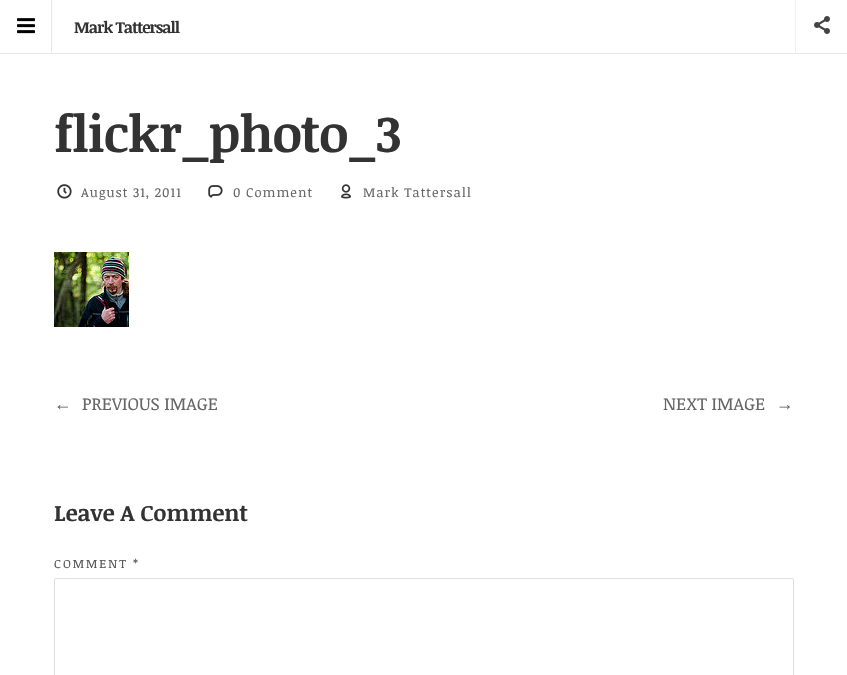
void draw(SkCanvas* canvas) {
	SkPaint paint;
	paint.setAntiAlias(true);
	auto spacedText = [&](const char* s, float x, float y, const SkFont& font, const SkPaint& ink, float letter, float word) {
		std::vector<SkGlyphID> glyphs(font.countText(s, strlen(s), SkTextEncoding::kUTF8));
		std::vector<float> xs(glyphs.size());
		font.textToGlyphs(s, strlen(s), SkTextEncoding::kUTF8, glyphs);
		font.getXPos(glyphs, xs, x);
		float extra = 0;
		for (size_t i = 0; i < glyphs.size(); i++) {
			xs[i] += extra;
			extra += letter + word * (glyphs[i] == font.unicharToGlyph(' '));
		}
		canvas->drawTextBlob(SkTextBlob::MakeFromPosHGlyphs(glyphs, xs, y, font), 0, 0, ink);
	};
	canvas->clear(0xffffffff);
	paint.setColor(0xffe7e7e7);
	canvas->drawRect(SkRect::MakeXYWH(0, 53, 847, 1), paint);
	canvas->drawRect(SkRect::MakeXYWH(51, 0, 1, 54), paint);
	canvas->drawImageRect(SkImages::DeferredFromEncodedData(SkData::MakeFromFileName("img1.png")), SkRect::MakeXYWH(17, 18, 18, 16), SkSamplingOptions());
	SkFont f1(fontMgr->matchFamilyStyle("Noticia Text", SkFontStyle::Bold()), 16);
	f1.setSubpixel(true);
	paint.setColor(0xff333333);
	spacedText("Mark Tattersall", 74, 33, f1, paint, -1, 0);
	paint.setColor(0xffeeeeee);
	canvas->drawRect(SkRect::MakeXYWH(795, 0, 1, 54), paint);
	canvas->drawImageRect(SkImages::DeferredFromEncodedData(SkData::MakeFromFileName("img2.png")), SkRect::MakeXYWH(814, 16, 16, 18), SkSamplingOptions());
	SkFont f2(fontMgr->matchFamilyStyle("Noticia Text", SkFontStyle::Bold()), 51.25);
	f2.setSubpixel(true);
	paint.setColor(0xff333333);
	spacedText("flickr_photo_3", 54, 152, f2, paint, -1, 0);
	canvas->drawImageRect(SkImages::DeferredFromEncodedData(SkData::MakeFromFileName("img3.png")), SkRect::MakeXYWH(57, 184, 15, 15), SkSamplingOptions());
	SkFont f3(fontMgr->matchFamilyStyle("Noticia Text", SkFontStyle::Normal()), 13);
	f3.setSubpixel(true);
	paint.setColor(0xff666666);
	spacedText("August 31, 2011", 81, 197, f3, paint, 1, 0);
	canvas->drawImageRect(SkImages::DeferredFromEncodedData(SkData::MakeFromFileName("img4.png")), SkRect::MakeXYWH(208, 185, 15, 13), SkSamplingOptions());
	spacedText("0 Comment", 233, 197, f3, paint, 1, 0);
	canvas->drawImageRect(SkImages::DeferredFromEncodedData(SkData::MakeFromFileName("img5.png")), SkRect::MakeXYWH(341, 184, 10, 15), SkSamplingOptions());
	spacedText("Mark Tattersall", 363, 197, f3, paint, 1, 0);
	canvas->drawImageRect(SkImages::DeferredFromEncodedData(SkData::MakeFromFileName("img6.png")), SkRect::MakeXYWH(54, 252, 75, 75), SkSamplingOptions());
	SkFont f4(fontMgr->matchFamilyStyle("Liberation Serif", SkFontStyle::Normal()), 17.5);
	f4.setSubpixel(true);
	canvas->drawString("←", 54, 410, f4, paint);
	SkFont f5(fontMgr->matchFamilyStyle("Noticia Text", SkFontStyle::Normal()), 17.5);
	f5.setSubpixel(true);
	canvas->drawString("PREVIOUS IMAGE", 82, 410, f5, paint);
	canvas->drawString("NEXT IMAGE", 663, 410, f5, paint);
	canvas->drawString("→", 776, 410, f4, paint);
	SkFont f6(fontMgr->matchFamilyStyle("Noticia Text", SkFontStyle::Bold()), 22.5);
	f6.setSubpixel(true);
	paint.setColor(0xff333333);
	canvas->drawString("Leave A Comment", 54, 521, f6, paint);
	SkFont f7(fontMgr->matchFamilyStyle("Noticia Text", SkFontStyle::Normal()), 12);
	f7.setSubpixel(true);
	paint.setColor(0xff555555);
	spacedText("COMMENT *", 54, 568, f7, paint, 2, 0);
	paint.setStroke(true);
	paint.setStrokeWidth(1);
	paint.setColor(0xffdddddd);
	canvas->drawRoundRect(SkRect::MakeXYWH(54.5, 578.5, 739, 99), 1.5, 1.5, paint);
}
